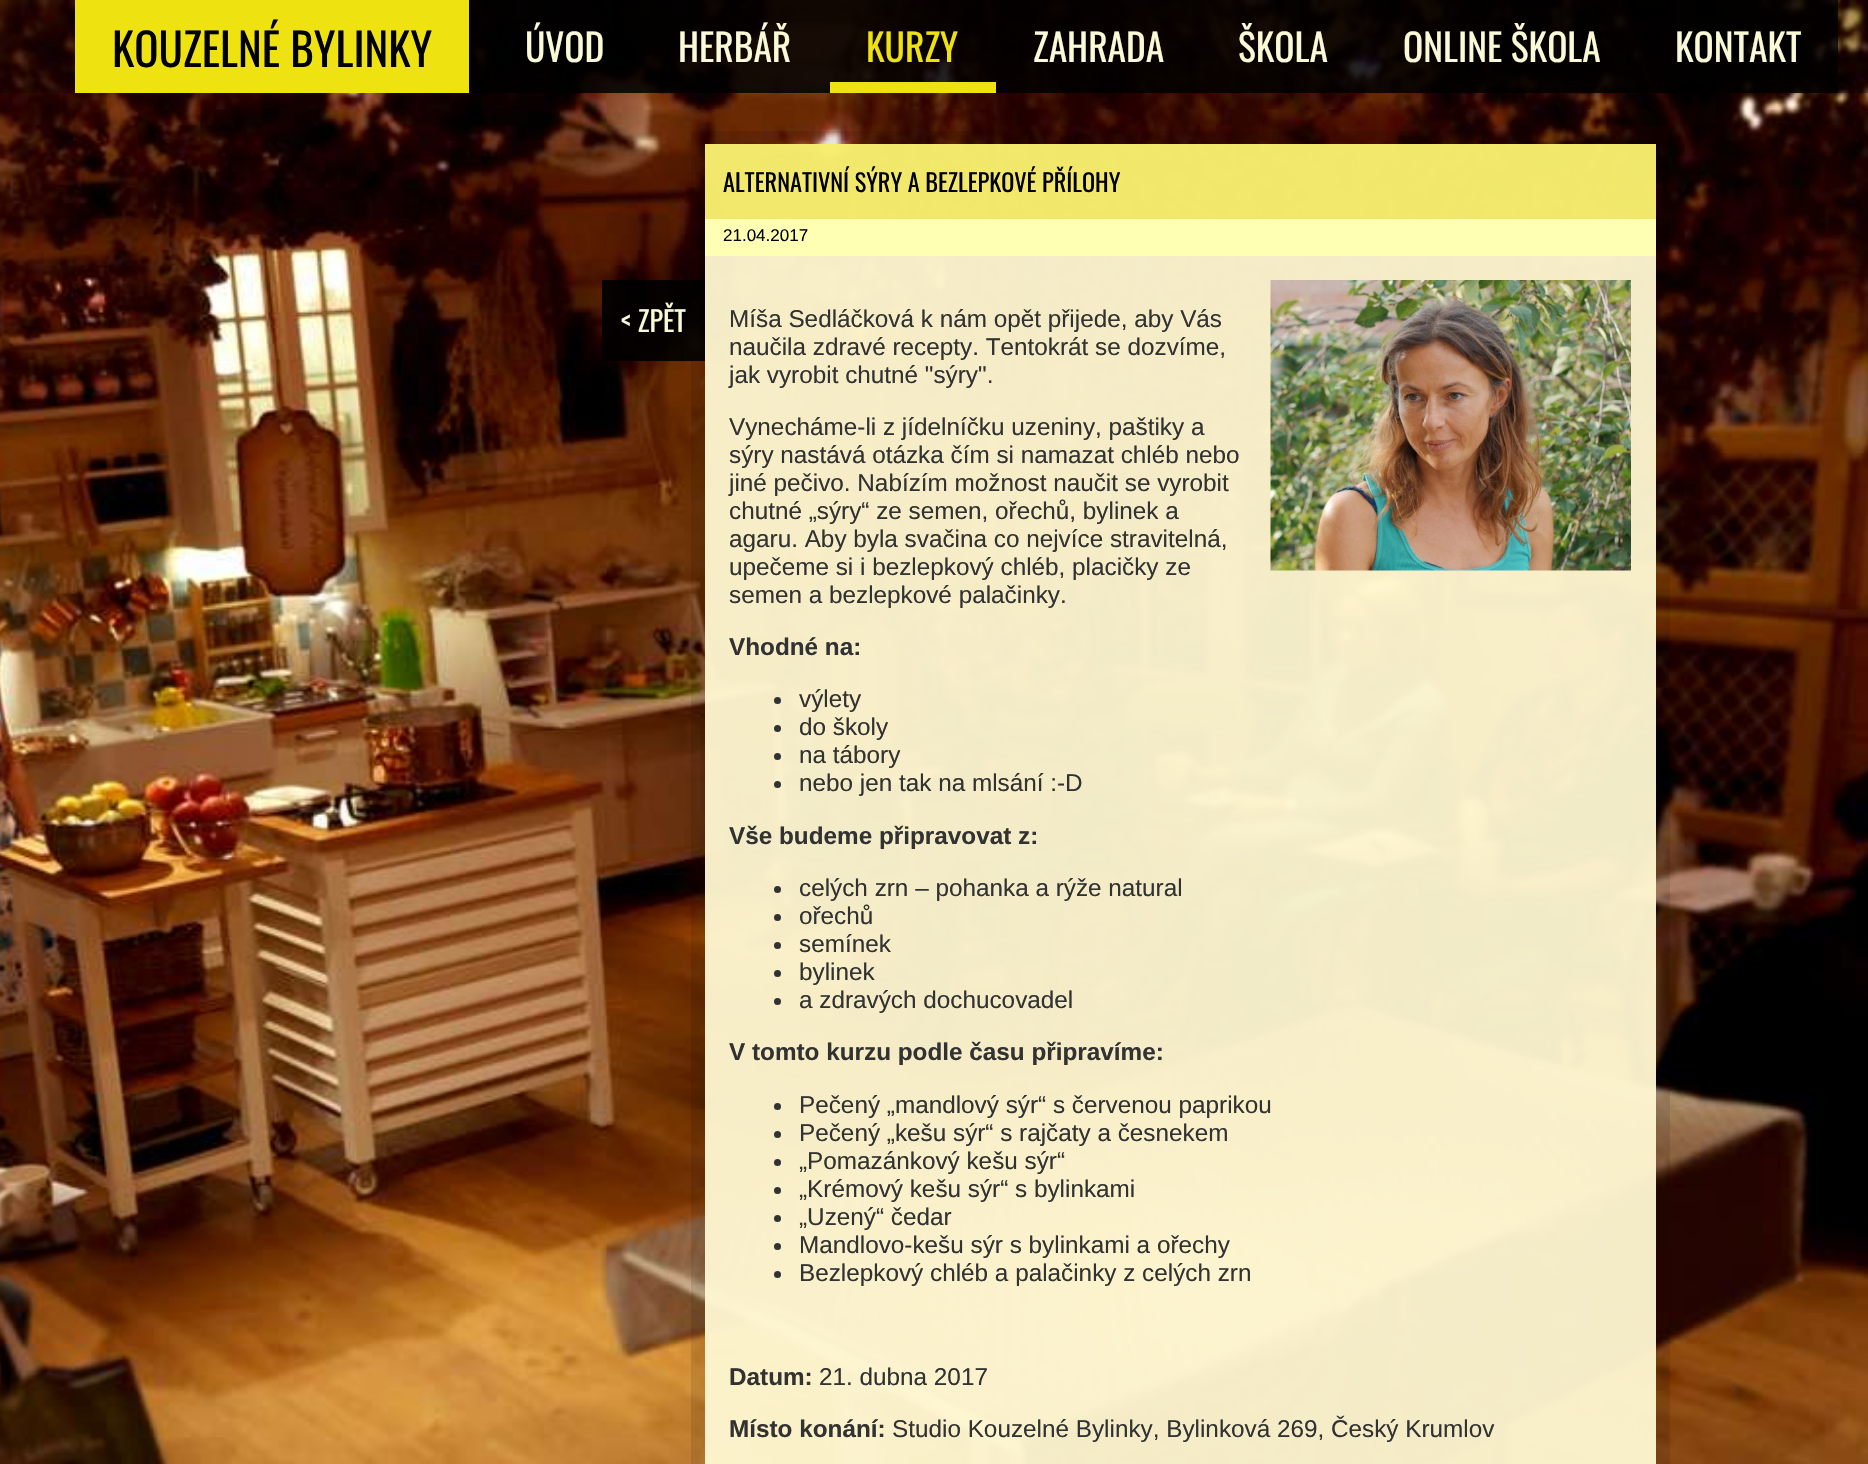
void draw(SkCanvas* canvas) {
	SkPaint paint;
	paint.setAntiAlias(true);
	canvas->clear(0xffffffff);
	canvas->drawImageRect(SkImages::DeferredFromEncodedData(SkData::MakeFromFileName("img1.png")), SkRect::MakeXYWH(0, 0, 1868, 1464), SkSamplingOptions());
	paint.setColor(0x4d000000);
	canvas->drawRect(SkRect::MakeXYWH(0, 0, 1868, 93), paint);
	paint.setColor(0xcc000000);
	canvas->drawRect(SkRect::MakeXYWH(469, 0, 1369, 93), paint);
	paint.setColor(0xffeee310);
	canvas->drawRect(SkRect::MakeXYWH(75, 0, 394, 93), paint);
	SkFont f1(fontMgr->matchFamilyStyle("Oswald", SkFontStyle::Normal()), 45);
	f1.setSubpixel(true);
	paint.setColor(0xff000000);
	canvas->drawString("KOUZELNÉ BYLINKY", 112, 67, f1, paint);
	SkFont f2(fontMgr->matchFamilyStyle("Oswald", SkFontStyle::Normal()), 37.5);
	f2.setSubpixel(true);
	paint.setColor(0xfffafad7);
	canvas->drawString("ÚVOD", 525, 62, f2, paint);
	canvas->drawString("HERBÁŘ", 678, 62, f2, paint);
	paint.setColor(0xffeee310);
	canvas->drawRect(SkRect::MakeXYWH(830, 82, 166, 11), paint);
	canvas->drawString("KURZY", 866, 62, f2, paint);
	paint.setColor(0xfffafad7);
	canvas->drawString("ZAHRADA", 1033, 62, f2, paint);
	canvas->drawString("ŠKOLA", 1238, 62, f2, paint);
	canvas->drawString("ONLINE ŠKOLA", 1403, 62, f2, paint);
	canvas->drawString("KONTAKT", 1675, 62, f2, paint);
	paint.setColor(0x1a000000);
	canvas->drawRect(SkRect::MakeXYWH(691, 131, 979, 1333), paint);
	paint.setColor(0xe6000000);
	canvas->drawRect(SkRect::MakeXYWH(602, 280, 103, 81), paint);
	SkFont f3(fontMgr->matchFamilyStyle("Oswald", SkFontStyle::Normal()), 28);
	f3.setSubpixel(true);
	paint.setColor(0xfffafad7);
	canvas->drawString("< ZPĚT", 621, 332, f3, paint);
	paint.setColor(0xf2fff8d2);
	canvas->drawRect(SkRect::MakeXYWH(705, 144, 951, 1320), paint);
	paint.setColor(0x80eee310);
	canvas->drawRect(SkRect::MakeXYWH(705, 144, 951, 75), paint);
	SkFont f4(fontMgr->matchFamilyStyle("Oswald", SkFontStyle::Normal()), 24.3);
	f4.setSubpixel(true);
	paint.setColor(0xff000000);
	canvas->drawString("ALTERNATIVNÍ SÝRY A BEZLEPKOVÉ PŘÍLOHY", 723, 192, f4, paint);
	paint.setColor(0xffffffb4);
	canvas->drawRect(SkRect::MakeXYWH(705, 219, 951, 37), paint);
	SkFont f5(fontMgr->matchFamilyStyle("Liberation Sans", SkFontStyle::Normal()), 17);
	f5.setSubpixel(true);
	paint.setColor(0xff000000);
	canvas->drawString("21.04.2017", 723, 241, f5, paint);
	SkFont f6(fontMgr->matchFamilyStyle("Liberation Sans", SkFontStyle::Normal()), 24.3);
	f6.setSubpixel(true);
	paint.setColor(0xff323232);
	canvas->drawString("Míša Sedláčková k nám opět přijede, aby Vás", 729, 327, f6, paint);
	canvas->drawString("naučila zdravé recepty. Tentokrát se dozvíme,", 729, 355, f6, paint);
	canvas->drawString("jak vyrobit chutné \"sýry\".", 729, 383, f6, paint);
	canvas->drawImageRect(SkImages::DeferredFromEncodedData(SkData::MakeFromFileName("img2.png")), SkRect::MakeXYWH(1270, 280, 361, 291), SkSamplingOptions());
	canvas->drawString("Vynecháme-li z jídelníčku uzeniny, paštiky a", 729, 435, f6, paint);
	canvas->drawString("sýry nastává otázka čím si namazat chléb nebo", 729, 463, f6, paint);
	canvas->drawString("jiné pečivo. Nabízím možnost naučit se vyrobit", 729, 491, f6, paint);
	canvas->drawString("chutné „sýry“ ze semen, ořechů, bylinek a", 729, 519, f6, paint);
	canvas->drawString("agaru. Aby byla svačina co nejvíce stravitelná,", 729, 547, f6, paint);
	canvas->drawString("upečeme si i bezlepkový chléb, placičky ze", 729, 575, f6, paint);
	canvas->drawString("semen a bezlepkové palačinky.", 729, 603, f6, paint);
	SkFont f7(fontMgr->matchFamilyStyle("Liberation Sans", SkFontStyle::Bold()), 24.3);
	f7.setSubpixel(true);
	canvas->drawString("Vhodné na:", 729, 655, f7, paint);
	canvas->drawCircle(777.5, 700.5, 3.5, paint);
	canvas->drawString("výlety", 799, 707, f6, paint);
	canvas->drawCircle(777.5, 728.5, 3.5, paint);
	canvas->drawString("do školy", 799, 735, f6, paint);
	canvas->drawCircle(777.5, 756.5, 3.5, paint);
	canvas->drawString("na tábory", 799, 763, f6, paint);
	canvas->drawCircle(777.5, 784.5, 3.5, paint);
	canvas->drawString("nebo jen tak na mlsání :-D", 799, 791, f6, paint);
	canvas->drawString("Vše budeme připravovat z:", 729, 844, f7, paint);
	canvas->drawCircle(777.5, 889.5, 3.5, paint);
	canvas->drawString("celých zrn – pohanka a rýže natural", 799, 896, f6, paint);
	canvas->drawCircle(777.5, 917.5, 3.5, paint);
	canvas->drawString("ořechů", 799, 924, f6, paint);
	canvas->drawCircle(777.5, 945.5, 3.5, paint);
	canvas->drawString("semínek", 799, 952, f6, paint);
	canvas->drawCircle(777.5, 973.5, 3.5, paint);
	canvas->drawString("bylinek", 799, 980, f6, paint);
	canvas->drawCircle(777.5, 1001.5, 3.5, paint);
	canvas->drawString("a zdravých dochucovadel", 799, 1008, f6, paint);
	canvas->drawString("V tomto kurzu podle času připravíme:", 729, 1060, f7, paint);
	canvas->drawCircle(777.5, 1106.5, 3.5, paint);
	canvas->drawString("Pečený „mandlový sýr“ s červenou paprikou", 799, 1113, f6, paint);
	canvas->drawCircle(777.5, 1134.5, 3.5, paint);
	canvas->drawString("Pečený „kešu sýr“ s rajčaty a česnekem", 799, 1141, f6, paint);
	canvas->drawCircle(777.5, 1162.5, 3.5, paint);
	canvas->drawString("„Pomazánkový kešu sýr“", 799, 1169, f6, paint);
	canvas->drawCircle(777.5, 1190.5, 3.5, paint);
	canvas->drawString("„Krémový kešu sýr“ s bylinkami", 799, 1197, f6, paint);
	canvas->drawCircle(777.5, 1218.5, 3.5, paint);
	canvas->drawString("„Uzený“ čedar", 799, 1225, f6, paint);
	canvas->drawCircle(777.5, 1246.5, 3.5, paint);
	canvas->drawString("Mandlovo-kešu sýr s bylinkami a ořechy", 799, 1253, f6, paint);
	canvas->drawCircle(777.5, 1274.5, 3.5, paint);
	canvas->drawString("Bezlepkový chléb a palačinky z celých zrn", 799, 1281, f6, paint);
	canvas->drawString("Datum:", 729, 1385, f7, paint);
	canvas->drawString("21. dubna 2017", 819, 1385, f6, paint);
	canvas->drawString("Místo konání:", 729, 1437, f7, paint);
	canvas->drawString("Studio Kouzelné Bylinky, Bylinková 269, Český Krumlov", 892, 1437, f6, paint);
}
